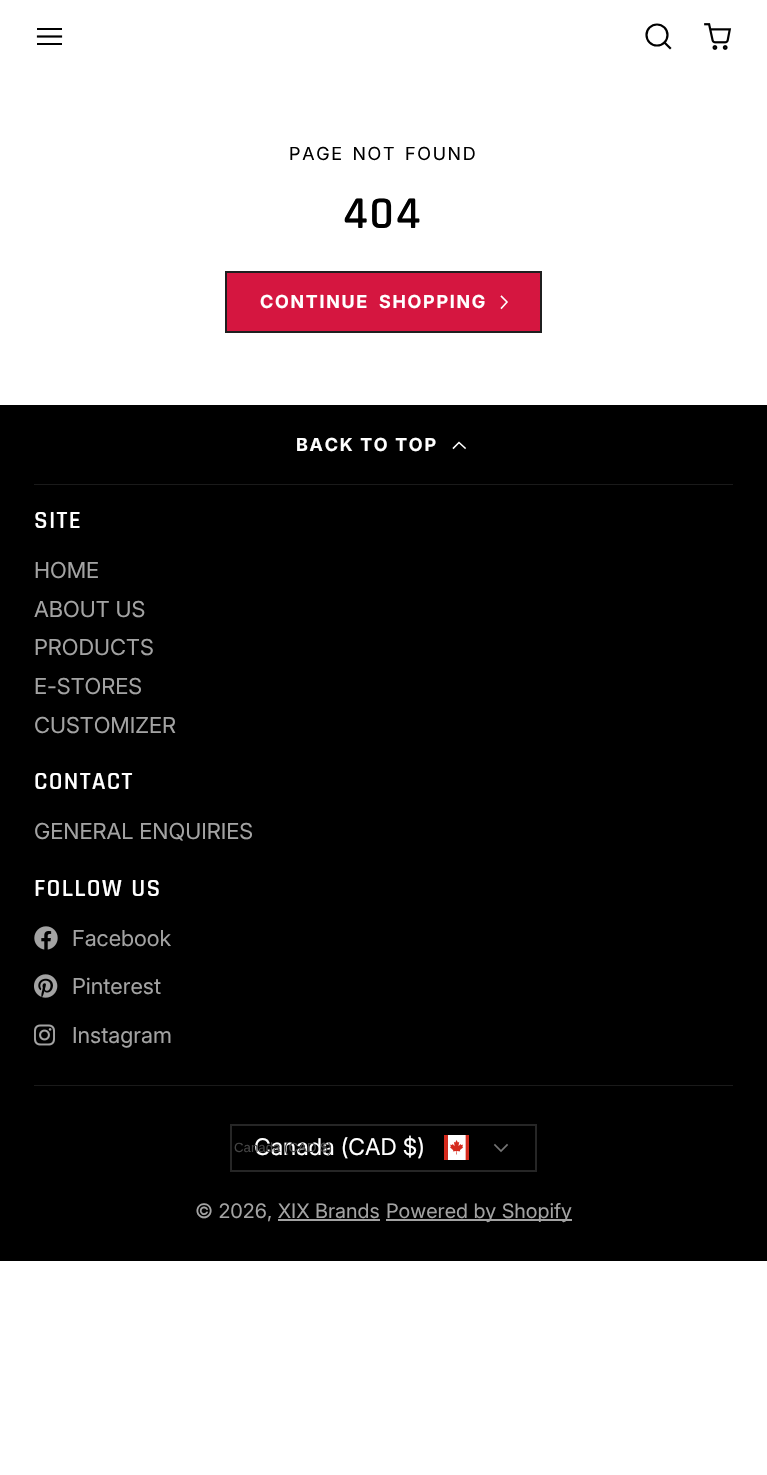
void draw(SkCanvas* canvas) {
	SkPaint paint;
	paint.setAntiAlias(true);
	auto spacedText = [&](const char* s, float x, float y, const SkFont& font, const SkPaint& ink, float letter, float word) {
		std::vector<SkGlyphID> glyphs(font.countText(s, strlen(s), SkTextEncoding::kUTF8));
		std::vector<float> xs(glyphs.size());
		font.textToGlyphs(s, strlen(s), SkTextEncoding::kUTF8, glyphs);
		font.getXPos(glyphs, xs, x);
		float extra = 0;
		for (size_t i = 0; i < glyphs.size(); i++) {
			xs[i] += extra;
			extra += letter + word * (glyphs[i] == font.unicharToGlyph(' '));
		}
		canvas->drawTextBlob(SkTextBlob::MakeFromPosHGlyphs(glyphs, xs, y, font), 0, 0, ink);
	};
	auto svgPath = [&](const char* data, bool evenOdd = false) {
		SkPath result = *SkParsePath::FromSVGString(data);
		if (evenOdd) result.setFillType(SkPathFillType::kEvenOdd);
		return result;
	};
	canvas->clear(0xffffffff);
	paint.setStroke(true);
	paint.setStrokeWidth(2.2);
	paint.setStrokeCap(SkPaint::kSquare_Cap);
	paint.setColor(0xff000000);
	canvas->drawPath(svgPath("M38 36.5H61"), paint);
	paint.setStroke(false);
	canvas->drawRect(SkRect::MakeXYWH(37, 28, 25, 2), paint);
	canvas->drawRect(SkRect::MakeXYWH(37, 43, 25, 2), paint);
	paint.setStroke(true);
	paint.setStrokeCap(SkPaint::kButt_Cap);
	canvas->drawCircle(657, 35, 10.5, paint);
	paint.setStrokeCap(SkPaint::kSquare_Cap);
	canvas->drawPath(svgPath("M670 48L664.5 42.5"), paint);
	canvas->drawImageRect(SkImages::DeferredFromEncodedData(SkData::MakeFromFileName("img1.png")), SkRect::MakeXYWH(704, 23, 28, 27), SkSamplingOptions());
	SkFont f1(fontMgr->matchFamilyStyle("Inter", SkFontStyle::Normal()), 18);
	f1.setSubpixel(true);
	paint.setStroke(false);
	spacedText("PAGE NOT FOUND", 289, 160, f1, paint, 1.75, 2);
	SkFont f2(fontMgr->matchFamilyStyle("Rajdhani", SkFontStyle(600, SkFontStyle::kNormal_Width, SkFontStyle::kUpright_Slant)), 46);
	f2.setSubpixel(true);
	spacedText("404", 343, 228, f2, paint, 2, 0);
	paint.setColor(0xffd51640);
	canvas->drawRect(SkRect::MakeXYWH(226, 272, 315, 60), paint);
	paint.setStroke(true);
	paint.setStrokeWidth(2);
	paint.setStrokeCap(SkPaint::kButt_Cap);
	paint.setColor(0xff1f1f1f);
	canvas->drawRect(SkRect::MakeXYWH(226, 272, 315, 60), paint);
	SkFont f3(fontMgr->matchFamilyStyle("Inter", SkFontStyle::Bold()), 18);
	f3.setSubpixel(true);
	paint.setStroke(false);
	paint.setColor(0xffffffff);
	spacedText("CONTINUE SHOPPING", 260, 308, f3, paint, 1.75, 4);
	paint.setStroke(true);
	paint.setStrokeWidth(1.6);
	paint.setStrokeCap(SkPaint::kSquare_Cap);
	canvas->drawPath(svgPath("M501.5 308L507 302L501.5 296.5"), paint);
	paint.setStroke(false);
	paint.setColor(0xff000000);
	canvas->drawRect(SkRect::MakeXYWH(0, 405, 767, 856), paint);
	paint.setColor(0xffffffff);
	spacedText("BACK TO TOP", 296, 451, f3, paint, 1.75, 0);
	paint.setStroke(true);
	canvas->drawPath(svgPath("M465 448L459 442.5L453.5 448"), paint);
	paint.setStroke(false);
	paint.setColor(0xff1a1a1a);
	canvas->drawRect(SkRect::MakeXYWH(34, 484, 699, 1), paint);
	SkFont f4(fontMgr->matchFamilyStyle("Rajdhani", SkFontStyle(600, SkFontStyle::kNormal_Width, SkFontStyle::kUpright_Slant)), 25);
	f4.setSubpixel(true);
	paint.setColor(0xffffffff);
	spacedText("SITE", 34, 528, f4, paint, 1.25, 0);
	SkFont f5(fontMgr->matchFamilyStyle("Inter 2", SkFontStyle::Normal()), 22);
	f5.setSubpixel(true);
	paint.setColor(0xffa3a3a3);
	canvas->drawString("HOME", 34, 578, f5, paint);
	canvas->drawString("ABOUT US", 34, 617, f5, paint);
	canvas->drawString("PRODUCTS", 34, 655, f5, paint);
	canvas->drawString("E-STORES", 34, 694, f5, paint);
	canvas->drawString("CUSTOMIZER", 34, 733, f5, paint);
	paint.setColor(0xffffffff);
	spacedText("CONTACT", 34, 789, f4, paint, 1.25, 0);
	paint.setColor(0xffa3a3a3);
	canvas->drawString("GENERAL ENQUIRIES", 34, 839, f5, paint);
	paint.setColor(0xffffffff);
	spacedText("FOLLOW US", 34, 896, f4, paint, 1.25, 1);
	canvas->drawImageRect(SkImages::DeferredFromEncodedData(SkData::MakeFromFileName("img2.png")), SkRect::MakeXYWH(34, 926, 24, 24), SkSamplingOptions());
	paint.setColor(0xffa3a3a3);
	canvas->drawString("Facebook", 72, 946, f5, paint);
	canvas->drawImageRect(SkImages::DeferredFromEncodedData(SkData::MakeFromFileName("img3.png")), SkRect::MakeXYWH(34, 974, 24, 24), SkSamplingOptions());
	canvas->drawString("Pinterest", 72, 994, f5, paint);
	canvas->drawImageRect(SkImages::DeferredFromEncodedData(SkData::MakeFromFileName("img4.png")), SkRect::MakeXYWH(34, 1024, 21, 22), SkSamplingOptions());
	canvas->drawString("Instagram", 72, 1043, f5, paint);
	paint.setColor(0xff1a1a1a);
	canvas->drawRect(SkRect::MakeXYWH(34, 1085, 699, 1), paint);
	paint.setStroke(true);
	paint.setStrokeWidth(2);
	paint.setStrokeCap(SkPaint::kButt_Cap);
	paint.setColor(0xff262626);
	canvas->drawRect(SkRect::MakeXYWH(231, 1125, 305, 46), paint);
	SkFont f6(fontMgr->matchFamilyStyle("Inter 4", SkFontStyle::Normal()), 23);
	f6.setSubpixel(true);
	paint.setStroke(false);
	paint.setColor(0xffffffff);
	canvas->drawString("Canada (CAD $)", 254, 1155, f6, paint);
	canvas->drawImageRect(SkImages::DeferredFromEncodedData(SkData::MakeFromFileName("img5.png")), SkRect::MakeXYWH(444, 1135, 25, 25), SkSamplingOptions());
	paint.setStroke(true);
	paint.setStrokeWidth(1.7);
	paint.setStrokeCap(SkPaint::kSquare_Cap);
	paint.setColor(0xff757575);
	canvas->drawPath(svgPath("M495 1145L501 1151L507 1145"), paint);
	SkFont f7(fontMgr->matchFamilyStyle("Liberation Sans", SkFontStyle::Normal()), 13.25);
	f7.setSubpixel(true);
	paint.setStroke(false);
	paint.setColor(0xff454545);
	canvas->drawString("Canada (CAD $)", 234, 1152, f7, paint);
	SkFont f8(fontMgr->matchFamilyStyle("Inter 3", SkFontStyle::Normal()), 20);
	f8.setSubpixel(true);
	paint.setColor(0xffa3a3a3);
	canvas->drawString("© 2026, XIX Brands", 195, 1218, f8, paint);
	canvas->drawRect(SkRect::MakeXYWH(386, 1219, 186, 2), paint);
	canvas->drawString("Powered by Shopify", 386, 1218, f8, paint);
	canvas->drawRect(SkRect::MakeXYWH(278, 1219, 102, 2), paint);
}
